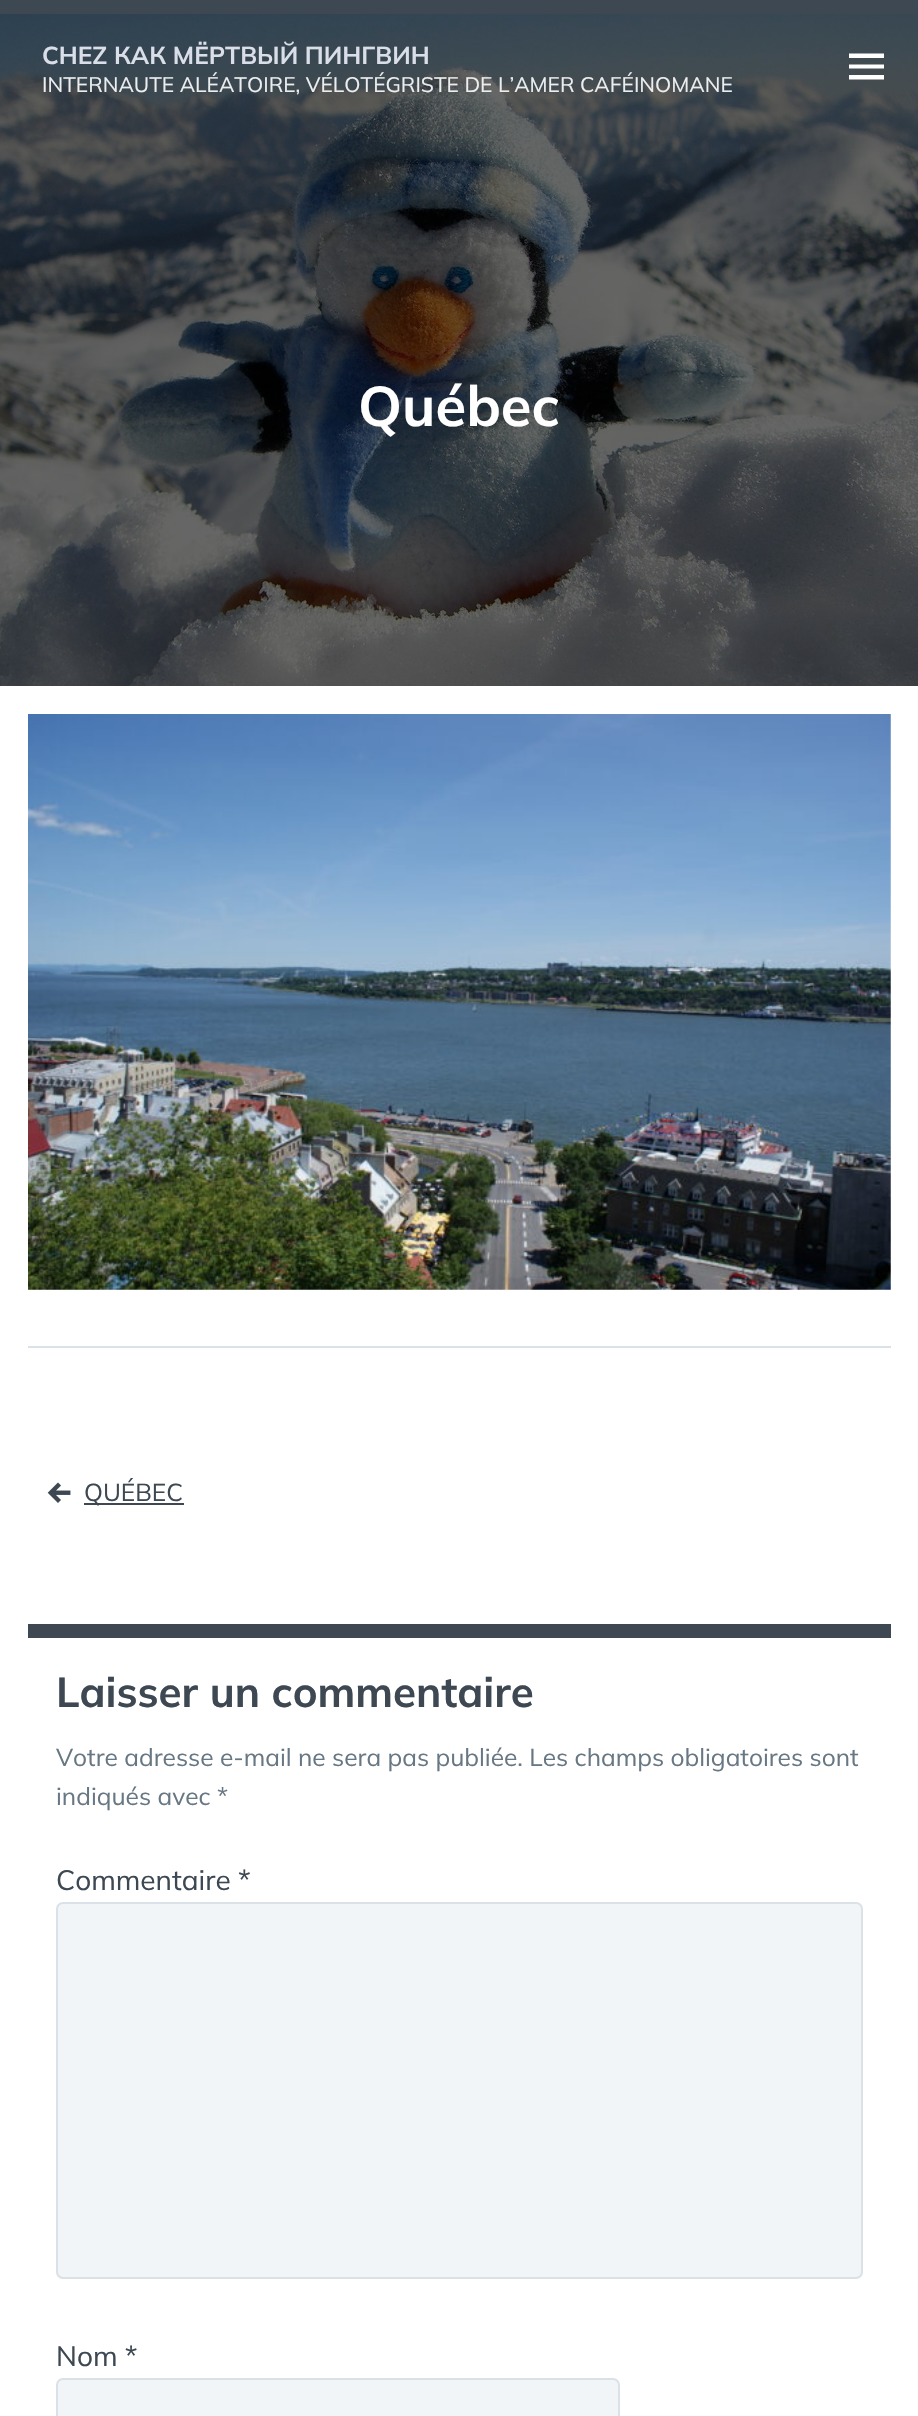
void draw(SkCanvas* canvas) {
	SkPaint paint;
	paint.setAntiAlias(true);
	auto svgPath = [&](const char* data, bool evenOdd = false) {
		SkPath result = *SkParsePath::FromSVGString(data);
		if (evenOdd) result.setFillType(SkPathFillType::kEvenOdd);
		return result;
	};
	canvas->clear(0xffffffff);
	canvas->drawImageRect(SkImages::DeferredFromEncodedData(SkData::MakeFromFileName("img1.png")), SkRect::MakeXYWH(0, 14, 918, 672), SkSamplingOptions());
	paint.setColor(0xff3d4852);
	canvas->drawRect(SkRect::MakeXYWH(0, 0, 918, 14), paint);
	SkFont f1(fontMgr->matchFamilyStyle("Mulish", SkFontStyle::Bold()), 24.5);
	f1.setSubpixel(true);
	paint.setColor(0xffd9dee8);
	canvas->drawString("CHEZ КАК МЁРТВЫЙ ПИНГВИН", 42, 64, f1, paint);
	SkFont f2(fontMgr->matchFamilyStyle("Mulish", SkFontStyle::Normal()), 21);
	f2.setSubpixel(true);
	paint.setColor(0xffecedee);
	canvas->drawString("INTERNAUTE ALÉATOIRE, VÉLOTÉGRISTE DE L’AMER CAFÉINOMANE", 42, 92, f2, paint);
	paint.setColor(0xffffffff);
	canvas->drawPath(svgPath("M849 79.5H884V75H849ZM849 53.5V58H884V53.5ZM849 68.5H884V64.5H849Z"), paint);
	SkFont f3(fontMgr->matchFamilyStyle("Mulish", SkFontStyle::Bold()), 56);
	f3.setSubpixel(true);
	canvas->drawString("Québec", 358, 426, f3, paint);
	canvas->drawImageRect(SkImages::DeferredFromEncodedData(SkData::MakeFromFileName("img2.png")), SkRect::MakeXYWH(28, 714, 863, 576), SkSamplingOptions());
	paint.setColor(0xffdae1e7);
	canvas->drawRect(SkRect::MakeXYWH(28, 1346, 863, 2), paint);
	canvas->drawImageRect(SkImages::DeferredFromEncodedData(SkData::MakeFromFileName("img3.png")), SkRect::MakeXYWH(47, 1482, 24, 21), SkSamplingOptions());
	paint.setColor(0xff3d4852);
	canvas->drawRect(SkRect::MakeXYWH(84, 1503, 100, 2), paint);
	SkFont f4(fontMgr->matchFamilyStyle("Mulish", SkFontStyle::Normal()), 24.5);
	f4.setSubpixel(true);
	canvas->drawString("QUÉBEC", 84, 1501, f4, paint);
	canvas->drawRect(SkRect::MakeXYWH(28, 1624, 863, 14), paint);
	SkFont f5(fontMgr->matchFamilyStyle("Mulish", SkFontStyle::Bold()), 42);
	f5.setSubpixel(true);
	canvas->drawString("Laisser un commentaire", 56, 1707, f5, paint);
	paint.setColor(0xff677783);
	canvas->drawString("Votre adresse e-mail ne sera pas publiée. Les champs obligatoires sont", 56, 1766, f4, paint);
	canvas->drawString("indiqués avec *", 56, 1805, f4, paint);
	SkFont f6(fontMgr->matchFamilyStyle("Mulish", SkFontStyle::Normal()), 28);
	f6.setSubpixel(true);
	paint.setColor(0xff3d4852);
	canvas->drawString("Commentaire *", 56, 1890, f6, paint);
	paint.setColor(0xfff1f5f8);
	canvas->drawRoundRect(SkRect::MakeXYWH(57, 1903, 805, 375), 6, 6, paint);
	paint.setStroke(true);
	paint.setStrokeWidth(2);
	paint.setColor(0xffdae1e7);
	canvas->drawRoundRect(SkRect::MakeXYWH(57, 1903, 805, 375), 6, 6, paint);
	paint.setStroke(false);
	paint.setColor(0xff3d4852);
	canvas->drawString("Nom *", 56, 2366, f6, paint);
	paint.setColor(0xfff1f5f8);
	canvas->drawRoundRect(SkRect::MakeXYWH(57, 2379, 562, 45), 6, 6, paint);
	paint.setStroke(true);
	paint.setColor(0xffdae1e7);
	canvas->drawRoundRect(SkRect::MakeXYWH(57, 2379, 562, 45), 6, 6, paint);
}
